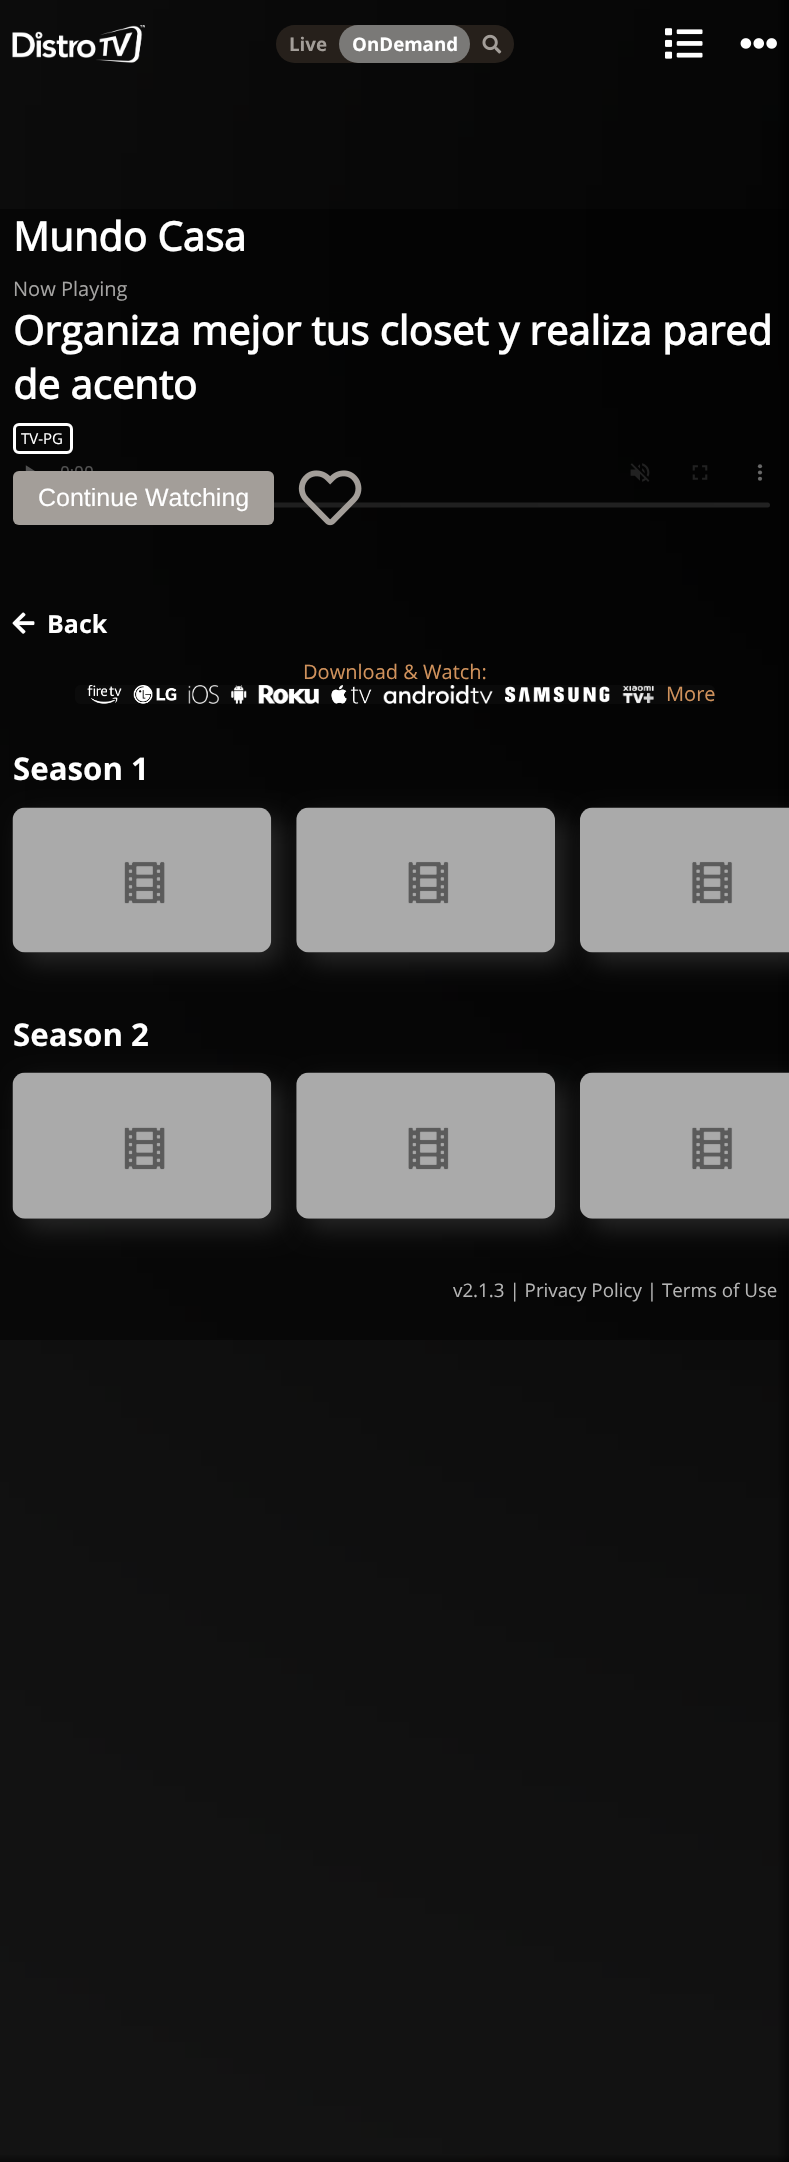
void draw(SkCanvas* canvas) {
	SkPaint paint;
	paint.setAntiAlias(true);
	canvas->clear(0xff000000);
	canvas->drawImageRect(SkImages::DeferredFromEncodedData(SkData::MakeFromFileName("img23.png")), SkRect::MakeXYWH(20, 463, 750, 45), SkSamplingOptions());
	canvas->drawImageRect(SkImages::DeferredFromEncodedData(SkData::MakeFromFileName("img1.png")), SkRect::MakeXYWH(0, 0, 789, 2162), SkSamplingOptions());
	paint.setColor(0x80000000);
	canvas->drawRect(SkRect::MakeXYWH(0, 209, 788, 1131), paint);
	canvas->drawImageRect(SkImages::DeferredFromEncodedData(SkData::MakeFromFileName("img2.png")), SkRect::MakeXYWH(12, 25, 133, 38), SkSamplingOptions());
	paint.setColor(0xff26201b);
	canvas->drawRoundRect(SkRect::MakeXYWH(276, 25, 238, 38), 19, 19, paint);
	SkFont f1(fontMgr->matchFamilyStyle("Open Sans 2", SkFontStyle::Bold()), 18.75);
	f1.setSubpixel(true);
	paint.setColor(0xffa39e99);
	canvas->drawString("Live", 289, 51, f1, paint);
	paint.setColor(0xff7a7977);
	canvas->drawRoundRect(SkRect::MakeXYWH(339, 25, 131, 38), 19, 19, paint);
	paint.setColor(0xffffffff);
	canvas->drawString("OnDemand", 352, 51, f1, paint);
	canvas->drawImageRect(SkImages::DeferredFromEncodedData(SkData::MakeFromFileName("img3.png")), SkRect::MakeXYWH(482, 34, 20, 20), SkSamplingOptions());
	canvas->drawImageRect(SkImages::DeferredFromEncodedData(SkData::MakeFromFileName("img4.png")), SkRect::MakeXYWH(665, 28, 38, 31), SkSamplingOptions());
	canvas->drawImageRect(SkImages::DeferredFromEncodedData(SkData::MakeFromFileName("img5.png")), SkRect::MakeXYWH(740, 38, 37, 11), SkSamplingOptions());
	SkFont f2(fontMgr->matchFamilyStyle("Open Sans", SkFontStyle::Bold()), 40);
	f2.setSubpixel(true);
	canvas->drawString("Mundo Casa", 13, 251, f2, paint);
	SkFont f3(fontMgr->matchFamilyStyle("Open Sans", SkFontStyle::Normal()), 20);
	f3.setSubpixel(true);
	paint.setColor(0xffa5a4a3);
	canvas->drawString("Now Playing", 13, 296, f3, paint);
	paint.setColor(0xffffffff);
	canvas->drawString("Organiza mejor tus closet y realiza pared", 13, 345, f2, paint);
	canvas->drawString("de acento", 13, 399, f2, paint);
	paint.setStroke(true);
	paint.setStrokeWidth(3);
	canvas->drawRoundRect(SkRect::MakeXYWH(14.5, 424.5, 57, 28), 4.5, 4.5, paint);
	SkFont f4(fontMgr->matchFamilyStyle("Open Sans", SkFontStyle::Normal()), 15);
	f4.setSubpixel(true);
	paint.setStroke(false);
	canvas->drawString("TV-PG", 21, 444, f4, paint);
	paint.setColor(0xffa39e99);
	canvas->drawRoundRect(SkRect::MakeXYWH(13, 471, 261, 54), 6, 6, paint);
	SkFont f5(fontMgr->matchFamilyStyle("Liberation Sans", SkFontStyle::Normal()), 25);
	f5.setSubpixel(true);
	paint.setColor(0xffffffff);
	canvas->drawString("Continue Watching", 38, 506, f5, paint);
	canvas->drawImageRect(SkImages::DeferredFromEncodedData(SkData::MakeFromFileName("img6.png")), SkRect::MakeXYWH(298, 470, 64, 56), SkSamplingOptions());
	canvas->drawImageRect(SkImages::DeferredFromEncodedData(SkData::MakeFromFileName("img7.png")), SkRect::MakeXYWH(12, 612, 23, 22), SkSamplingOptions());
	SkFont f6(fontMgr->matchFamilyStyle("Open Sans 2", SkFontStyle::Bold()), 25);
	f6.setSubpixel(true);
	canvas->drawString("Back", 47, 633, f6, paint);
	paint.setColor(0xffd0925c);
	canvas->drawString("Download & Watch:", 303, 679, f3, paint);
	paint.setColor(0x33202020);
	canvas->drawRoundRect(SkRect::MakeXYWH(75, 685, 640, 19), 6, 6, paint);
	canvas->drawImageRect(SkImages::DeferredFromEncodedData(SkData::MakeFromFileName("img8.png")), SkRect::MakeXYWH(87, 685, 35, 19), SkSamplingOptions());
	canvas->drawImageRect(SkImages::DeferredFromEncodedData(SkData::MakeFromFileName("img9.png")), SkRect::MakeXYWH(133, 685, 44, 19), SkSamplingOptions());
	canvas->drawImageRect(SkImages::DeferredFromEncodedData(SkData::MakeFromFileName("img10.png")), SkRect::MakeXYWH(188, 685, 31, 19), SkSamplingOptions());
	canvas->drawImageRect(SkImages::DeferredFromEncodedData(SkData::MakeFromFileName("img11.png")), SkRect::MakeXYWH(231, 685, 16, 19), SkSamplingOptions());
	canvas->drawImageRect(SkImages::DeferredFromEncodedData(SkData::MakeFromFileName("img12.png")), SkRect::MakeXYWH(258, 685, 61, 19), SkSamplingOptions());
	canvas->drawImageRect(SkImages::DeferredFromEncodedData(SkData::MakeFromFileName("img13.png")), SkRect::MakeXYWH(331, 685, 41, 19), SkSamplingOptions());
	canvas->drawImageRect(SkImages::DeferredFromEncodedData(SkData::MakeFromFileName("img14.png")), SkRect::MakeXYWH(383, 685, 110, 19), SkSamplingOptions());
	canvas->drawImageRect(SkImages::DeferredFromEncodedData(SkData::MakeFromFileName("img15.png")), SkRect::MakeXYWH(505, 686, 105, 17), SkSamplingOptions());
	canvas->drawImageRect(SkImages::DeferredFromEncodedData(SkData::MakeFromFileName("img16.png")), SkRect::MakeXYWH(622, 685, 32, 19), SkSamplingOptions());
	paint.setColor(0xffd0925c);
	canvas->drawString("More", 666, 701, f3, paint);
	SkFont f7(fontMgr->matchFamilyStyle("Open Sans 2", SkFontStyle::Bold()), 31.25);
	f7.setSubpixel(true);
	paint.setColor(0xffffffff);
	canvas->drawString("Season 1", 13, 780, f7, paint);
	paint.setColor(0xff262626);
	paint.setMaskFilter(SkMaskFilter::MakeBlur(kNormal_SkBlurStyle, 12.5));
	canvas->drawRoundRect(SkRect::MakeXYWH(23, 818, 258, 145), 13, 13, paint);
	paint.setMaskFilter(nullptr);
	canvas->drawImageRect(SkImages::DeferredFromEncodedData(SkData::MakeFromFileName("img17.png")), SkRect::MakeXYWH(12, 807, 260, 146), SkSamplingOptions());
	paint.setMaskFilter(SkMaskFilter::MakeBlur(kNormal_SkBlurStyle, 12.5));
	canvas->drawRoundRect(SkRect::MakeXYWH(306, 818, 259, 145), 13, 13, paint);
	paint.setMaskFilter(nullptr);
	canvas->drawImageRect(SkImages::DeferredFromEncodedData(SkData::MakeFromFileName("img18.png")), SkRect::MakeXYWH(296, 807, 259, 146), SkSamplingOptions());
	paint.setMaskFilter(SkMaskFilter::MakeBlur(kNormal_SkBlurStyle, 12.5));
	canvas->drawRoundRect(SkRect::MakeXYWH(590, 818, 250, 145), 13, 13, paint);
	paint.setMaskFilter(nullptr);
	canvas->drawImageRect(SkImages::DeferredFromEncodedData(SkData::MakeFromFileName("img19.png")), SkRect::MakeXYWH(580, 807, 209, 146), SkSamplingOptions());
	paint.setColor(0xffffffff);
	canvas->drawString("Season 2", 13, 1046, f7, paint);
	paint.setColor(0xff262626);
	paint.setMaskFilter(SkMaskFilter::MakeBlur(kNormal_SkBlurStyle, 12.5));
	canvas->drawRoundRect(SkRect::MakeXYWH(23, 1083, 258, 146), 13, 13, paint);
	paint.setMaskFilter(nullptr);
	canvas->drawImageRect(SkImages::DeferredFromEncodedData(SkData::MakeFromFileName("img20.png")), SkRect::MakeXYWH(12, 1072, 260, 147), SkSamplingOptions());
	paint.setMaskFilter(SkMaskFilter::MakeBlur(kNormal_SkBlurStyle, 12.5));
	canvas->drawRoundRect(SkRect::MakeXYWH(306, 1083, 259, 146), 13, 13, paint);
	paint.setMaskFilter(nullptr);
	canvas->drawImageRect(SkImages::DeferredFromEncodedData(SkData::MakeFromFileName("img21.png")), SkRect::MakeXYWH(296, 1072, 259, 147), SkSamplingOptions());
	paint.setMaskFilter(SkMaskFilter::MakeBlur(kNormal_SkBlurStyle, 12.5));
	canvas->drawRoundRect(SkRect::MakeXYWH(590, 1083, 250, 146), 13, 13, paint);
	paint.setMaskFilter(nullptr);
	canvas->drawImageRect(SkImages::DeferredFromEncodedData(SkData::MakeFromFileName("img22.png")), SkRect::MakeXYWH(580, 1072, 209, 147), SkSamplingOptions());
	SkFont f8(fontMgr->matchFamilyStyle("Open Sans", SkFontStyle::Normal()), 18.75);
	f8.setSubpixel(true);
	paint.setColor(0xffb5b5b5);
	canvas->drawString("v2.1.3 | Privacy Policy | Terms of Use", 453, 1297, f8, paint);
}
